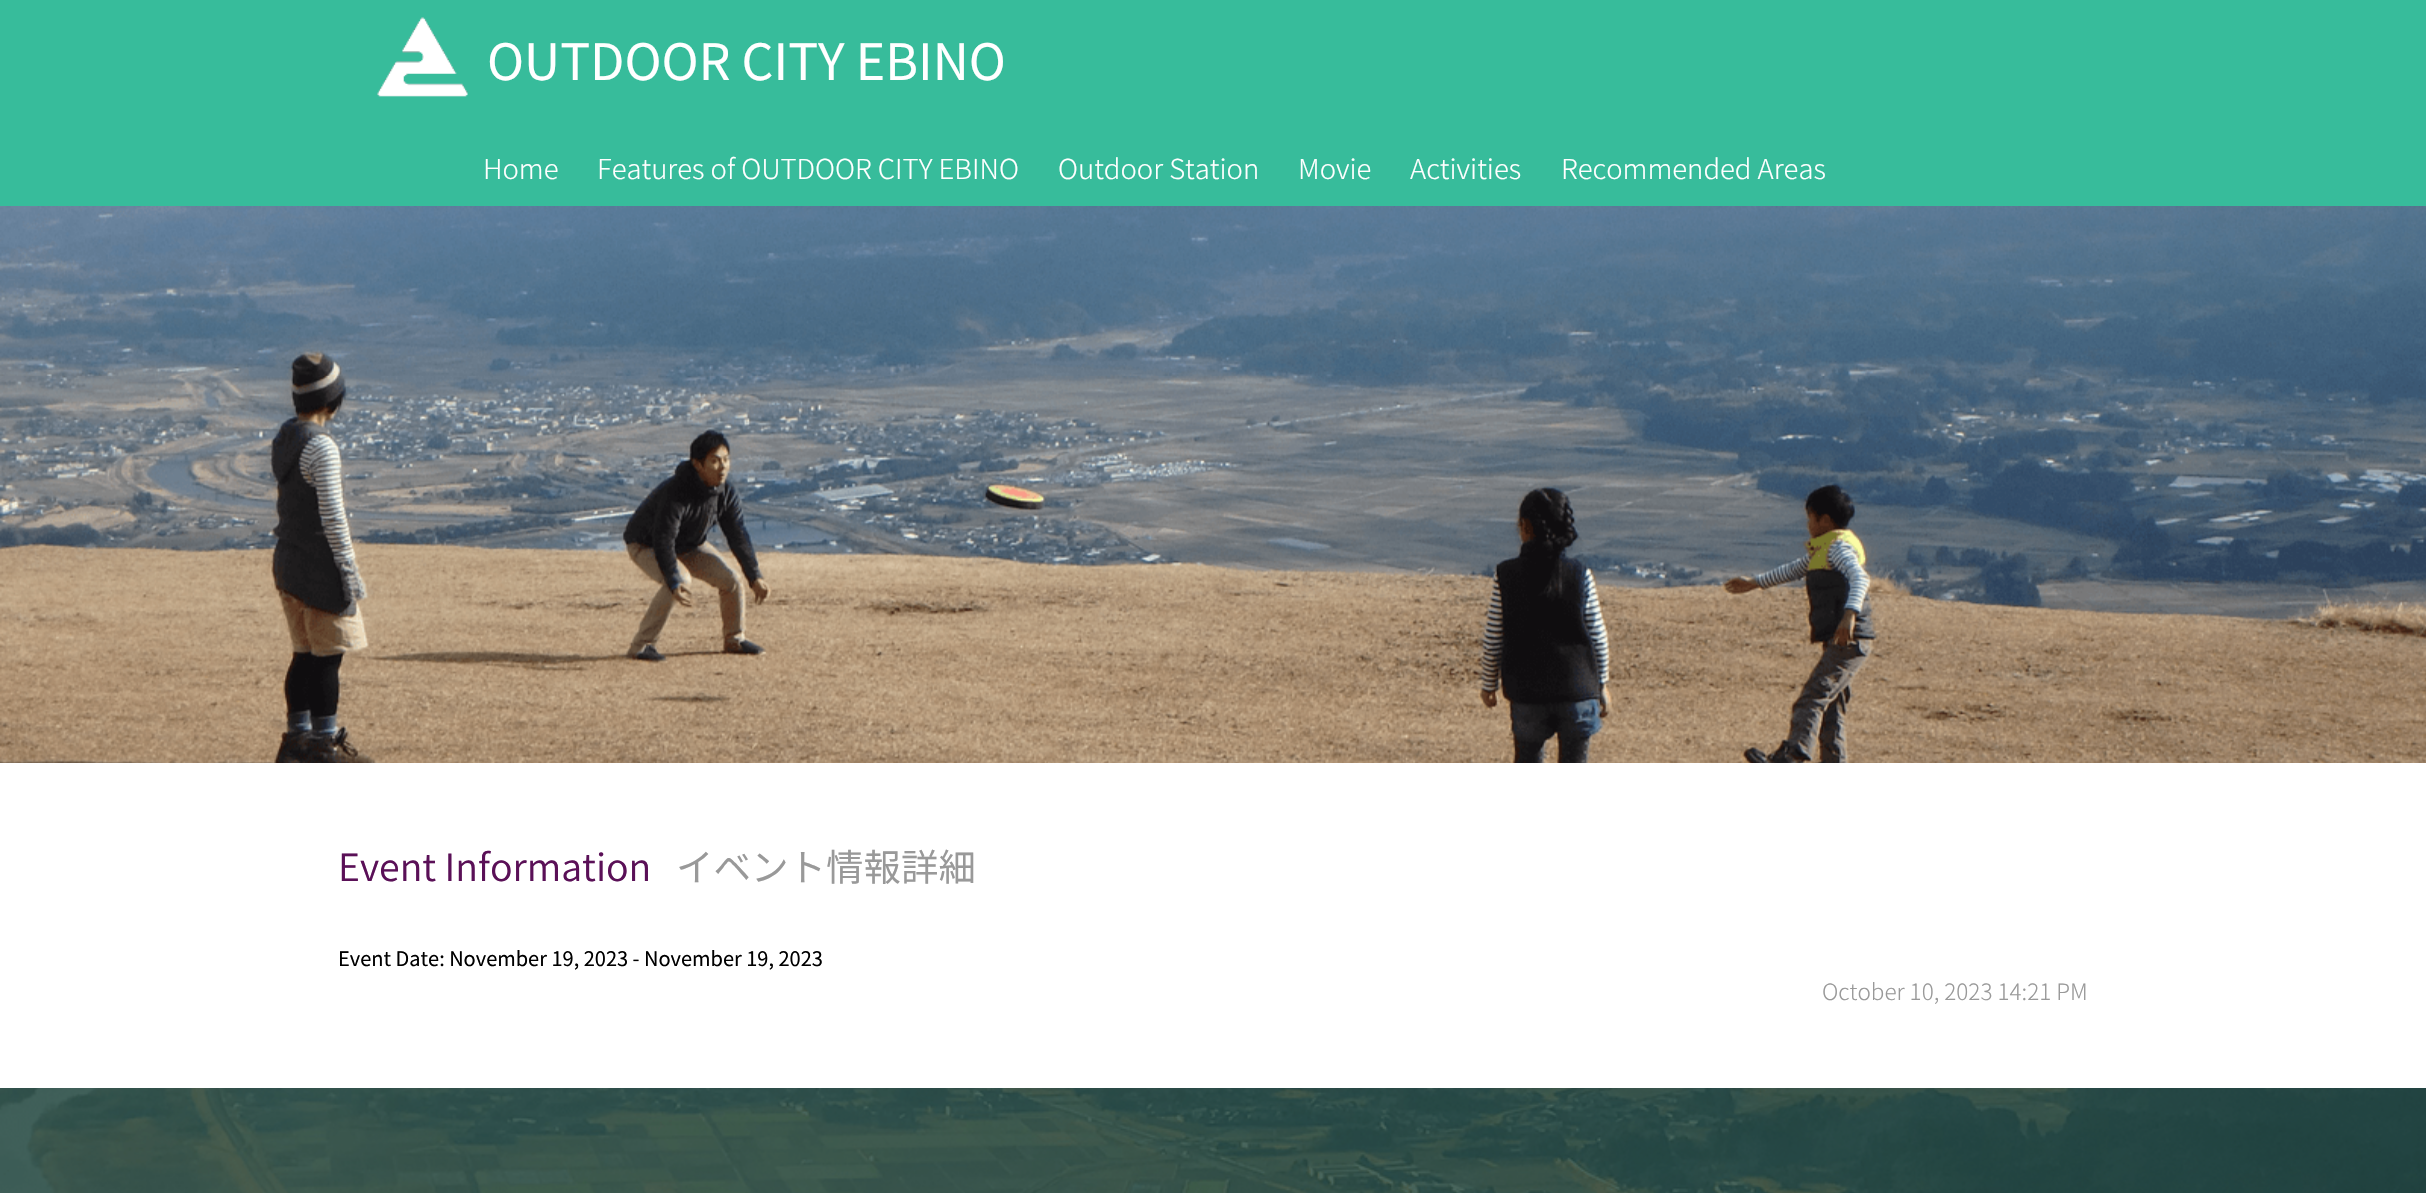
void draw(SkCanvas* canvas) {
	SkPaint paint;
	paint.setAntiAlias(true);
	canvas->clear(0xffffffff);
	paint.setColor(0xff37bc9b);
	canvas->drawRect(SkRect::MakeXYWH(0, 0, 2426, 206), paint);
	canvas->drawImageRect(SkImages::DeferredFromEncodedData(SkData::MakeFromFileName("img1.png")), SkRect::MakeXYWH(377, 17, 91, 80), SkSamplingOptions());
	SkFont f1(fontMgr->matchFamilyStyle("Noto Sans JP", SkFontStyle::Normal()), 50);
	f1.setSubpixel(true);
	paint.setColor(0xffffffff);
	canvas->drawString("OUTDOOR CITY EBINO", 487, 80, f1, paint);
	SkFont f2(fontMgr->matchFamilyStyle("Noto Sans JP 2", SkFontStyle(300, SkFontStyle::kNormal_Width, SkFontStyle::kUpright_Slant)), 27.5);
	f2.setSubpixel(true);
	canvas->drawString("Home", 483, 179, f2, paint);
	canvas->drawString("Features of OUTDOOR CITY EBINO", 597, 179, f2, paint);
	canvas->drawString("Outdoor Station", 1058, 179, f2, paint);
	canvas->drawString("Movie", 1298, 179, f2, paint);
	canvas->drawString("Activities", 1410, 179, f2, paint);
	canvas->drawString("Recommended Areas", 1561, 179, f2, paint);
	canvas->drawImageRect(SkImages::DeferredFromEncodedData(SkData::MakeFromFileName("img2.png")), SkRect::MakeXYWH(0, 206, 2426, 557), SkSamplingOptions());
	SkFont f3(fontMgr->matchFamilyStyle("Noto Sans JP", SkFontStyle(300, SkFontStyle::kNormal_Width, SkFontStyle::kUpright_Slant)), 37.5);
	f3.setSubpixel(true);
	paint.setColor(0xff5a1057);
	canvas->drawString("Event Information", 338, 881, f3, paint);
	SkFont f4(fontMgr->matchFamilyStyle("Noto Sans JP", SkFontStyle::Normal()), 37.5);
	f4.setSubpixel(true);
	paint.setColor(0xff999999);
	canvas->drawString("イベント情報詳細", 676, 881, f4, paint);
	SkFont f5(fontMgr->matchFamilyStyle("Noto Sans JP", SkFontStyle::Normal()), 20);
	f5.setSubpixel(true);
	paint.setColor(0xff000000);
	canvas->drawString("Event Date: November 19, 2023 - November 19, 2023", 338, 966, f5, paint);
	SkFont f6(fontMgr->matchFamilyStyle("Noto Sans JP 2", SkFontStyle(300, SkFontStyle::kNormal_Width, SkFontStyle::kUpright_Slant)), 22.5);
	f6.setSubpixel(true);
	paint.setColor(0xff999999);
	canvas->drawString("October 10, 2023 14:21 PM", 1822, 1000, f6, paint);
	canvas->drawImageRect(SkImages::DeferredFromEncodedData(SkData::MakeFromFileName("img3.png")), SkRect::MakeXYWH(0, 1088, 2426, 105), SkSamplingOptions());
}
